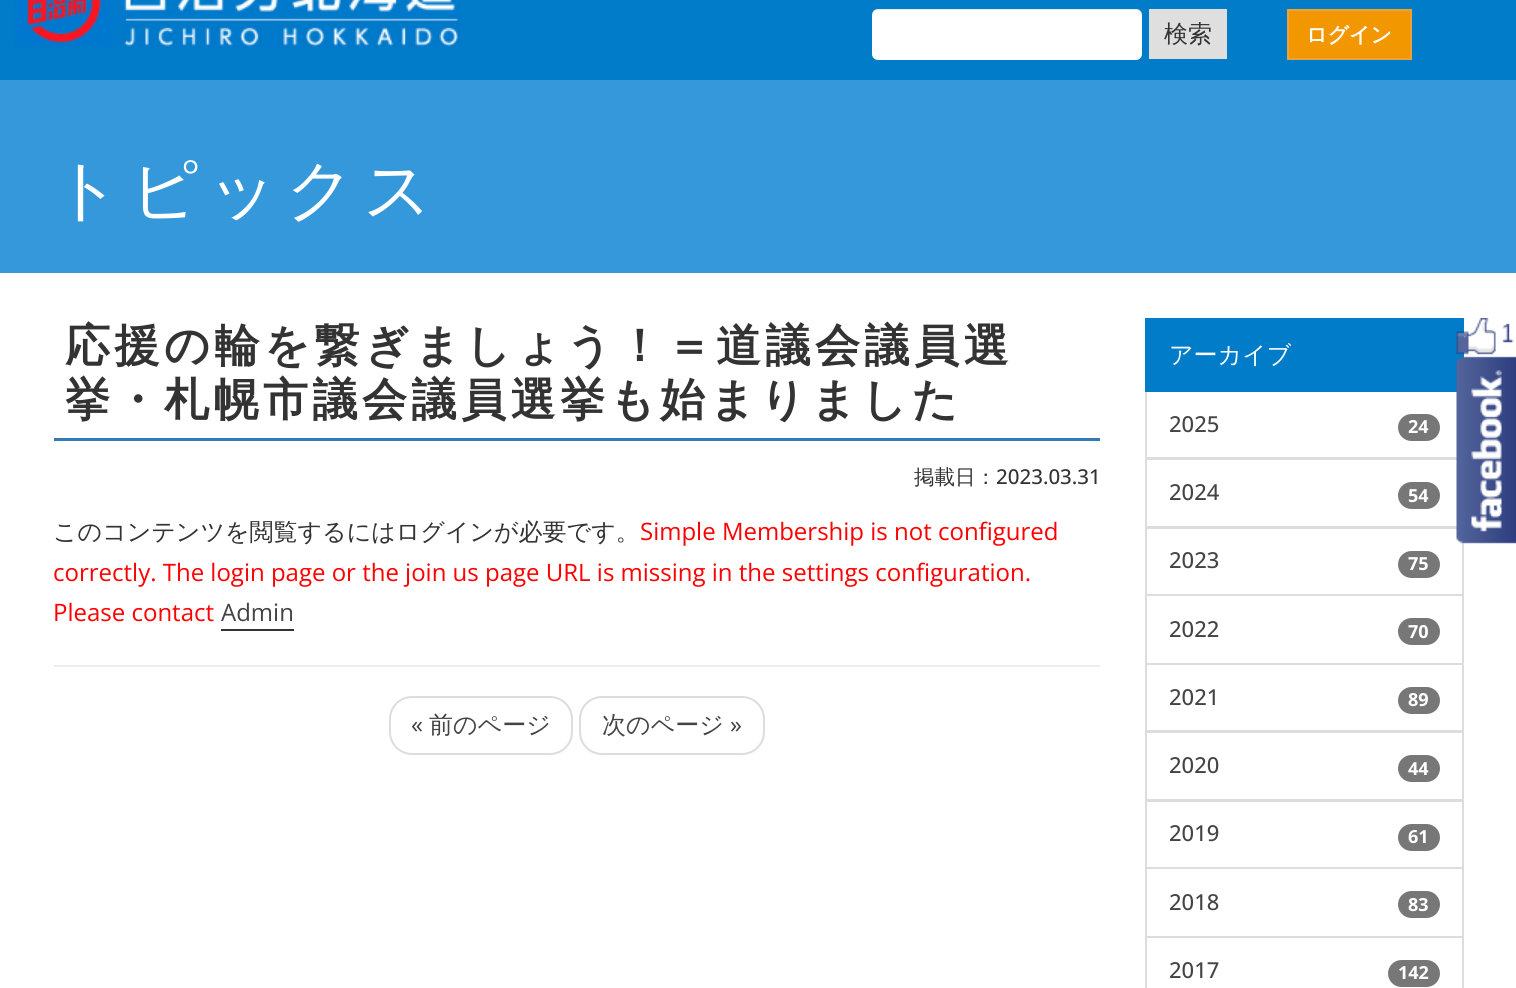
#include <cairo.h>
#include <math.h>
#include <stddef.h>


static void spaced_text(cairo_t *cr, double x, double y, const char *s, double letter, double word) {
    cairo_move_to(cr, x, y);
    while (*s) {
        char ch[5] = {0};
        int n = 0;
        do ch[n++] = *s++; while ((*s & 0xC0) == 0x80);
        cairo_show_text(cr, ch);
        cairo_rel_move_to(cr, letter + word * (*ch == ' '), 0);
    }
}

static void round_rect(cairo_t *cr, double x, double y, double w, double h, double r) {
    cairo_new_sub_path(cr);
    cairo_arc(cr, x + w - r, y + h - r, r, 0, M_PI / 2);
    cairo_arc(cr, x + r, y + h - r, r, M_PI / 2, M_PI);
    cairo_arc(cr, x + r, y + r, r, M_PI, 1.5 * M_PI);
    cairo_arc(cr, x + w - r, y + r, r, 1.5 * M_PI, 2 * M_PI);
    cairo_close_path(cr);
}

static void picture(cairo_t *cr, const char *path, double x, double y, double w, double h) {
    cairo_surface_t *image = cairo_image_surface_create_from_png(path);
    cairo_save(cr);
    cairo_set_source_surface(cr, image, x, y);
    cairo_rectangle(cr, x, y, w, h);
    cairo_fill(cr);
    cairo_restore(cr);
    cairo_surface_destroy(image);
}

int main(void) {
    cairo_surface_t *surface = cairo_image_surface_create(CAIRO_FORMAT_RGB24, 1516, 988);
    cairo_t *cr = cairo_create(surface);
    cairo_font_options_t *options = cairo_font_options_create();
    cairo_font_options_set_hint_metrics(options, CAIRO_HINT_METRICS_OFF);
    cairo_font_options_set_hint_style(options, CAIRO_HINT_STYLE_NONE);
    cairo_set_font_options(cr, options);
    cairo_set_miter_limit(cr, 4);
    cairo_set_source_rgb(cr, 1, 1, 1);
    cairo_paint(cr);
    cairo_set_source_rgb(cr, 0, 0.486, 0.784);
    cairo_rectangle(cr, 0, 0, 1516, 80);
    cairo_fill(cr);
    picture(cr, "img1.png", 15, 0, 445, 48);
    cairo_set_source_rgb(cr, 1, 1, 1);
    round_rect(cr, 872, 9, 270, 51, 6);
    cairo_fill(cr);
    cairo_set_source_rgba(cr, 0, 0, 0, 0.07);
    cairo_new_path(cr);
    cairo_move_to(cr, 878, 10);
    cairo_line_to(cr, 1136, 10);
    cairo_curve_to(cr, 1139, 10, 1142, 13, 1142, 16);
    cairo_line_to(cr, 1142, 15);
    cairo_curve_to(cr, 1142, 12, 1139, 9, 1136, 9);
    cairo_line_to(cr, 878, 9);
    cairo_curve_to(cr, 875, 9, 872, 12, 872, 15);
    cairo_line_to(cr, 872, 16);
    cairo_curve_to(cr, 872, 13, 874, 10, 878, 10);
    cairo_close_path(cr);
    cairo_fill(cr);
    cairo_set_source_rgb(cr, 0.875, 0.875, 0.875);
    cairo_rectangle(cr, 1149, 9, 78, 50);
    cairo_fill(cr);
    cairo_select_font_face(cr, "WenQuanYi Zen Hei Medium", CAIRO_FONT_SLANT_NORMAL, CAIRO_FONT_WEIGHT_NORMAL);
    cairo_set_font_size(cr, 24);
    cairo_set_source_rgb(cr, 0.2, 0.2, 0.2);
    cairo_move_to(cr, 1164, 42);
    cairo_show_text(cr, "検索");
    cairo_set_source_rgb(cr, 0.953, 0.592, 0);
    cairo_rectangle(cr, 1288, 10, 123, 49);
    cairo_fill_preserve(cr);
    cairo_set_source_rgb(cr, 0.933, 0.635, 0.212);
    cairo_stroke(cr);
    cairo_select_font_face(cr, "WenQuanYi Zen Hei", CAIRO_FONT_SLANT_NORMAL, CAIRO_FONT_WEIGHT_BOLD);
    cairo_set_font_size(cr, 21);
    cairo_set_source_rgb(cr, 1, 1, 1);
    cairo_move_to(cr, 1306, 42);
    cairo_show_text(cr, "ログイン");
    cairo_set_source_rgb(cr, 0.204, 0.596, 0.859);
    cairo_rectangle(cr, 0, 80, 1516, 193);
    cairo_fill(cr);
    cairo_select_font_face(cr, "WenQuanYi Zen Hei Medium", CAIRO_FONT_SLANT_NORMAL, CAIRO_FONT_WEIGHT_NORMAL);
    cairo_set_font_size(cr, 67.25);
    cairo_set_source_rgb(cr, 1, 1, 1);
    spaced_text(cr, 53, 213, "トピックス", 8.75, 0);
    cairo_set_source_rgb(cr, 0.2, 0.478, 0.718);
    cairo_rectangle(cr, 54, 438, 1046, 3);
    cairo_fill(cr);
    cairo_select_font_face(cr, "WenQuanYi Zen Hei", CAIRO_FONT_SLANT_NORMAL, CAIRO_FONT_WEIGHT_BOLD);
    cairo_set_font_size(cr, 45);
    cairo_set_source_rgb(cr, 0.2, 0.2, 0.2);
    spaced_text(cr, 65, 361, "応援の輪を繋ぎましょう！＝道議会議員選", 4.5, 0);
    spaced_text(cr, 65, 415, "挙・札幌市議会議員選挙も始まりました", 4.5, 0);
    cairo_select_font_face(cr, "WenQuanYi Zen Hei Medium", CAIRO_FONT_SLANT_NORMAL, CAIRO_FONT_WEIGHT_NORMAL);
    cairo_set_font_size(cr, 20.5);
    cairo_move_to(cr, 914, 484);
    cairo_show_text(cr, "掲載日：");
    cairo_select_font_face(cr, "Open Sans Medium", CAIRO_FONT_SLANT_NORMAL, CAIRO_FONT_WEIGHT_NORMAL);
    cairo_move_to(cr, 996, 484);
    cairo_show_text(cr, "2023.03.31");
    cairo_select_font_face(cr, "WenQuanYi Zen Hei Medium", CAIRO_FONT_SLANT_NORMAL, CAIRO_FONT_WEIGHT_NORMAL);
    cairo_set_font_size(cr, 24);
    cairo_move_to(cr, 53, 540);
    cairo_show_text(cr, "このコンテンツを閲覧するにはログインが必要です。");
    cairo_select_font_face(cr, "Open Sans", CAIRO_FONT_SLANT_NORMAL, CAIRO_FONT_WEIGHT_NORMAL);
    cairo_set_source_rgb(cr, 1, 0, 0);
    cairo_move_to(cr, 640, 540);
    cairo_show_text(cr, "Simple Membership is not configured");
    cairo_move_to(cr, 53, 581);
    cairo_show_text(cr, "correctly. The login page or the join us page URL is missing in the settings configuration.");
    cairo_move_to(cr, 53, 621);
    cairo_show_text(cr, "Please contact");
    cairo_set_source_rgb(cr, 0.267, 0.267, 0.267);
    cairo_move_to(cr, 221, 621);
    cairo_show_text(cr, "Admin");
    cairo_set_source_rgb(cr, 0.2, 0.2, 0.2);
    cairo_rectangle(cr, 221, 629, 73, 2);
    cairo_fill(cr);
    cairo_set_source_rgb(cr, 0.933, 0.933, 0.933);
    cairo_rectangle(cr, 54, 665, 1046, 2);
    cairo_fill(cr);
    round_rect(cr, 390, 697, 182, 57, 22);
    cairo_set_source_rgb(cr, 0.867, 0.867, 0.867);
    cairo_stroke(cr);
    cairo_set_source_rgb(cr, 0.267, 0.267, 0.267);
    cairo_move_to(cr, 411, 733);
    cairo_show_text(cr, "«");
    cairo_select_font_face(cr, "WenQuanYi Zen Hei Medium", CAIRO_FONT_SLANT_NORMAL, CAIRO_FONT_WEIGHT_NORMAL);
    cairo_move_to(cr, 429, 733);
    cairo_show_text(cr, "前のページ");
    round_rect(cr, 580, 697, 184, 57, 22);
    cairo_set_source_rgb(cr, 0.867, 0.867, 0.867);
    cairo_stroke(cr);
    cairo_set_source_rgb(cr, 0.267, 0.267, 0.267);
    cairo_move_to(cr, 602, 733);
    cairo_show_text(cr, "次のページ");
    cairo_select_font_face(cr, "Open Sans", CAIRO_FONT_SLANT_NORMAL, CAIRO_FONT_WEIGHT_NORMAL);
    cairo_move_to(cr, 730, 733);
    cairo_show_text(cr, "»");
    cairo_rectangle(cr, 1146, 391, 317, 67);
    cairo_set_source_rgb(cr, 0.867, 0.867, 0.867);
    cairo_stroke(cr);
    cairo_set_source_rgb(cr, 0, 0.486, 0.784);
    cairo_rectangle(cr, 1145, 318, 319, 74);
    cairo_fill(cr);
    cairo_select_font_face(cr, "WenQuanYi Zen Hei Medium", CAIRO_FONT_SLANT_NORMAL, CAIRO_FONT_WEIGHT_NORMAL);
    cairo_set_source_rgb(cr, 1, 1, 1);
    cairo_move_to(cr, 1169, 363);
    cairo_show_text(cr, "アーカイブ");
    cairo_select_font_face(cr, "Open Sans Medium", CAIRO_FONT_SLANT_NORMAL, CAIRO_FONT_WEIGHT_NORMAL);
    cairo_set_font_size(cr, 22);
    cairo_set_source_rgb(cr, 0.267, 0.267, 0.267);
    cairo_move_to(cr, 1169, 432);
    cairo_show_text(cr, "2025");
    cairo_set_source_rgb(cr, 0.467, 0.467, 0.467);
    round_rect(cr, 1398, 414, 42, 27, 13.5);
    cairo_fill(cr);
    cairo_select_font_face(cr, "Open Sans", CAIRO_FONT_SLANT_NORMAL, CAIRO_FONT_WEIGHT_BOLD);
    cairo_set_font_size(cr, 18);
    cairo_set_source_rgb(cr, 1, 1, 1);
    cairo_move_to(cr, 1408, 433);
    cairo_show_text(cr, "24");
    cairo_rectangle(cr, 1146, 459, 317, 68);
    cairo_set_source_rgb(cr, 0.867, 0.867, 0.867);
    cairo_stroke(cr);
    cairo_select_font_face(cr, "Open Sans Medium", CAIRO_FONT_SLANT_NORMAL, CAIRO_FONT_WEIGHT_NORMAL);
    cairo_set_font_size(cr, 22);
    cairo_set_source_rgb(cr, 0.267, 0.267, 0.267);
    cairo_move_to(cr, 1169, 500);
    cairo_show_text(cr, "2024");
    cairo_set_source_rgb(cr, 0.467, 0.467, 0.467);
    round_rect(cr, 1398, 482, 42, 27, 13.5);
    cairo_fill(cr);
    cairo_select_font_face(cr, "Open Sans", CAIRO_FONT_SLANT_NORMAL, CAIRO_FONT_WEIGHT_BOLD);
    cairo_set_font_size(cr, 18);
    cairo_set_source_rgb(cr, 1, 1, 1);
    cairo_move_to(cr, 1408, 502);
    cairo_show_text(cr, "54");
    cairo_rectangle(cr, 1146, 528, 317, 67);
    cairo_set_source_rgb(cr, 0.867, 0.867, 0.867);
    cairo_stroke(cr);
    cairo_select_font_face(cr, "Open Sans Medium", CAIRO_FONT_SLANT_NORMAL, CAIRO_FONT_WEIGHT_NORMAL);
    cairo_set_font_size(cr, 22);
    cairo_set_source_rgb(cr, 0.267, 0.267, 0.267);
    cairo_move_to(cr, 1169, 568);
    cairo_show_text(cr, "2023");
    cairo_set_source_rgb(cr, 0.467, 0.467, 0.467);
    round_rect(cr, 1398, 551, 42, 27, 13.5);
    cairo_fill(cr);
    cairo_select_font_face(cr, "Open Sans", CAIRO_FONT_SLANT_NORMAL, CAIRO_FONT_WEIGHT_BOLD);
    cairo_set_font_size(cr, 18);
    cairo_set_source_rgb(cr, 1, 1, 1);
    cairo_move_to(cr, 1408, 570);
    cairo_show_text(cr, "75");
    cairo_rectangle(cr, 1146, 595, 317, 69);
    cairo_set_source_rgb(cr, 0.867, 0.867, 0.867);
    cairo_stroke(cr);
    cairo_select_font_face(cr, "Open Sans Medium", CAIRO_FONT_SLANT_NORMAL, CAIRO_FONT_WEIGHT_NORMAL);
    cairo_set_font_size(cr, 22);
    cairo_set_source_rgb(cr, 0.267, 0.267, 0.267);
    cairo_move_to(cr, 1169, 637);
    cairo_show_text(cr, "2022");
    cairo_set_source_rgb(cr, 0.467, 0.467, 0.467);
    round_rect(cr, 1398, 618, 42, 27, 13.5);
    cairo_fill(cr);
    cairo_select_font_face(cr, "Open Sans", CAIRO_FONT_SLANT_NORMAL, CAIRO_FONT_WEIGHT_BOLD);
    cairo_set_font_size(cr, 18);
    cairo_set_source_rgb(cr, 1, 1, 1);
    cairo_move_to(cr, 1408, 638);
    cairo_show_text(cr, "70");
    cairo_rectangle(cr, 1146, 664, 317, 67);
    cairo_set_source_rgb(cr, 0.867, 0.867, 0.867);
    cairo_stroke(cr);
    cairo_select_font_face(cr, "Open Sans Medium", CAIRO_FONT_SLANT_NORMAL, CAIRO_FONT_WEIGHT_NORMAL);
    cairo_set_font_size(cr, 22);
    cairo_set_source_rgb(cr, 0.267, 0.267, 0.267);
    cairo_move_to(cr, 1169, 705);
    cairo_show_text(cr, "2021");
    cairo_set_source_rgb(cr, 0.467, 0.467, 0.467);
    round_rect(cr, 1398, 687, 42, 27, 13.5);
    cairo_fill(cr);
    cairo_select_font_face(cr, "Open Sans", CAIRO_FONT_SLANT_NORMAL, CAIRO_FONT_WEIGHT_BOLD);
    cairo_set_font_size(cr, 18);
    cairo_set_source_rgb(cr, 1, 1, 1);
    cairo_move_to(cr, 1408, 706);
    cairo_show_text(cr, "89");
    cairo_rectangle(cr, 1146, 732, 317, 68);
    cairo_set_source_rgb(cr, 0.867, 0.867, 0.867);
    cairo_stroke(cr);
    cairo_select_font_face(cr, "Open Sans Medium", CAIRO_FONT_SLANT_NORMAL, CAIRO_FONT_WEIGHT_NORMAL);
    cairo_set_font_size(cr, 22);
    cairo_set_source_rgb(cr, 0.267, 0.267, 0.267);
    cairo_move_to(cr, 1169, 773);
    cairo_show_text(cr, "2020");
    cairo_set_source_rgb(cr, 0.467, 0.467, 0.467);
    round_rect(cr, 1398, 755, 42, 27, 13.5);
    cairo_fill(cr);
    cairo_select_font_face(cr, "Open Sans", CAIRO_FONT_SLANT_NORMAL, CAIRO_FONT_WEIGHT_BOLD);
    cairo_set_font_size(cr, 18);
    cairo_set_source_rgb(cr, 1, 1, 1);
    cairo_move_to(cr, 1408, 775);
    cairo_show_text(cr, "44");
    cairo_rectangle(cr, 1146, 801, 317, 67);
    cairo_set_source_rgb(cr, 0.867, 0.867, 0.867);
    cairo_stroke(cr);
    cairo_select_font_face(cr, "Open Sans Medium", CAIRO_FONT_SLANT_NORMAL, CAIRO_FONT_WEIGHT_NORMAL);
    cairo_set_font_size(cr, 22);
    cairo_set_source_rgb(cr, 0.267, 0.267, 0.267);
    cairo_move_to(cr, 1169, 841);
    cairo_show_text(cr, "2019");
    cairo_set_source_rgb(cr, 0.467, 0.467, 0.467);
    round_rect(cr, 1398, 824, 42, 27, 13.5);
    cairo_fill(cr);
    cairo_select_font_face(cr, "Open Sans", CAIRO_FONT_SLANT_NORMAL, CAIRO_FONT_WEIGHT_BOLD);
    cairo_set_font_size(cr, 18);
    cairo_set_source_rgb(cr, 1, 1, 1);
    cairo_move_to(cr, 1408, 843);
    cairo_show_text(cr, "61");
    cairo_rectangle(cr, 1146, 868, 317, 69);
    cairo_set_source_rgb(cr, 0.867, 0.867, 0.867);
    cairo_stroke(cr);
    cairo_select_font_face(cr, "Open Sans Medium", CAIRO_FONT_SLANT_NORMAL, CAIRO_FONT_WEIGHT_NORMAL);
    cairo_set_font_size(cr, 22);
    cairo_set_source_rgb(cr, 0.267, 0.267, 0.267);
    cairo_move_to(cr, 1169, 910);
    cairo_show_text(cr, "2018");
    cairo_set_source_rgb(cr, 0.467, 0.467, 0.467);
    round_rect(cr, 1398, 891, 42, 27, 13.5);
    cairo_fill(cr);
    cairo_select_font_face(cr, "Open Sans", CAIRO_FONT_SLANT_NORMAL, CAIRO_FONT_WEIGHT_BOLD);
    cairo_set_font_size(cr, 18);
    cairo_set_source_rgb(cr, 1, 1, 1);
    cairo_move_to(cr, 1408, 911);
    cairo_show_text(cr, "83");
    cairo_rectangle(cr, 1146, 937, 317, 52);
    cairo_set_source_rgb(cr, 0.867, 0.867, 0.867);
    cairo_stroke(cr);
    cairo_select_font_face(cr, "Open Sans Medium", CAIRO_FONT_SLANT_NORMAL, CAIRO_FONT_WEIGHT_NORMAL);
    cairo_set_font_size(cr, 22);
    cairo_set_source_rgb(cr, 0.267, 0.267, 0.267);
    cairo_move_to(cr, 1169, 978);
    cairo_show_text(cr, "2017");
    cairo_set_source_rgb(cr, 0.467, 0.467, 0.467);
    round_rect(cr, 1388, 960, 52, 27, 13.5);
    cairo_fill(cr);
    cairo_select_font_face(cr, "Open Sans", CAIRO_FONT_SLANT_NORMAL, CAIRO_FONT_WEIGHT_BOLD);
    cairo_set_font_size(cr, 18);
    cairo_set_source_rgb(cr, 1, 1, 1);
    cairo_move_to(cr, 1398, 979);
    cairo_show_text(cr, "142");
    picture(cr, "img2.png", 1456, 318, 60, 226);
    cairo_surface_write_to_png(surface, "page.png");
    cairo_font_options_destroy(options);
    cairo_destroy(cr);
    cairo_surface_destroy(surface);
    return 0;
}
